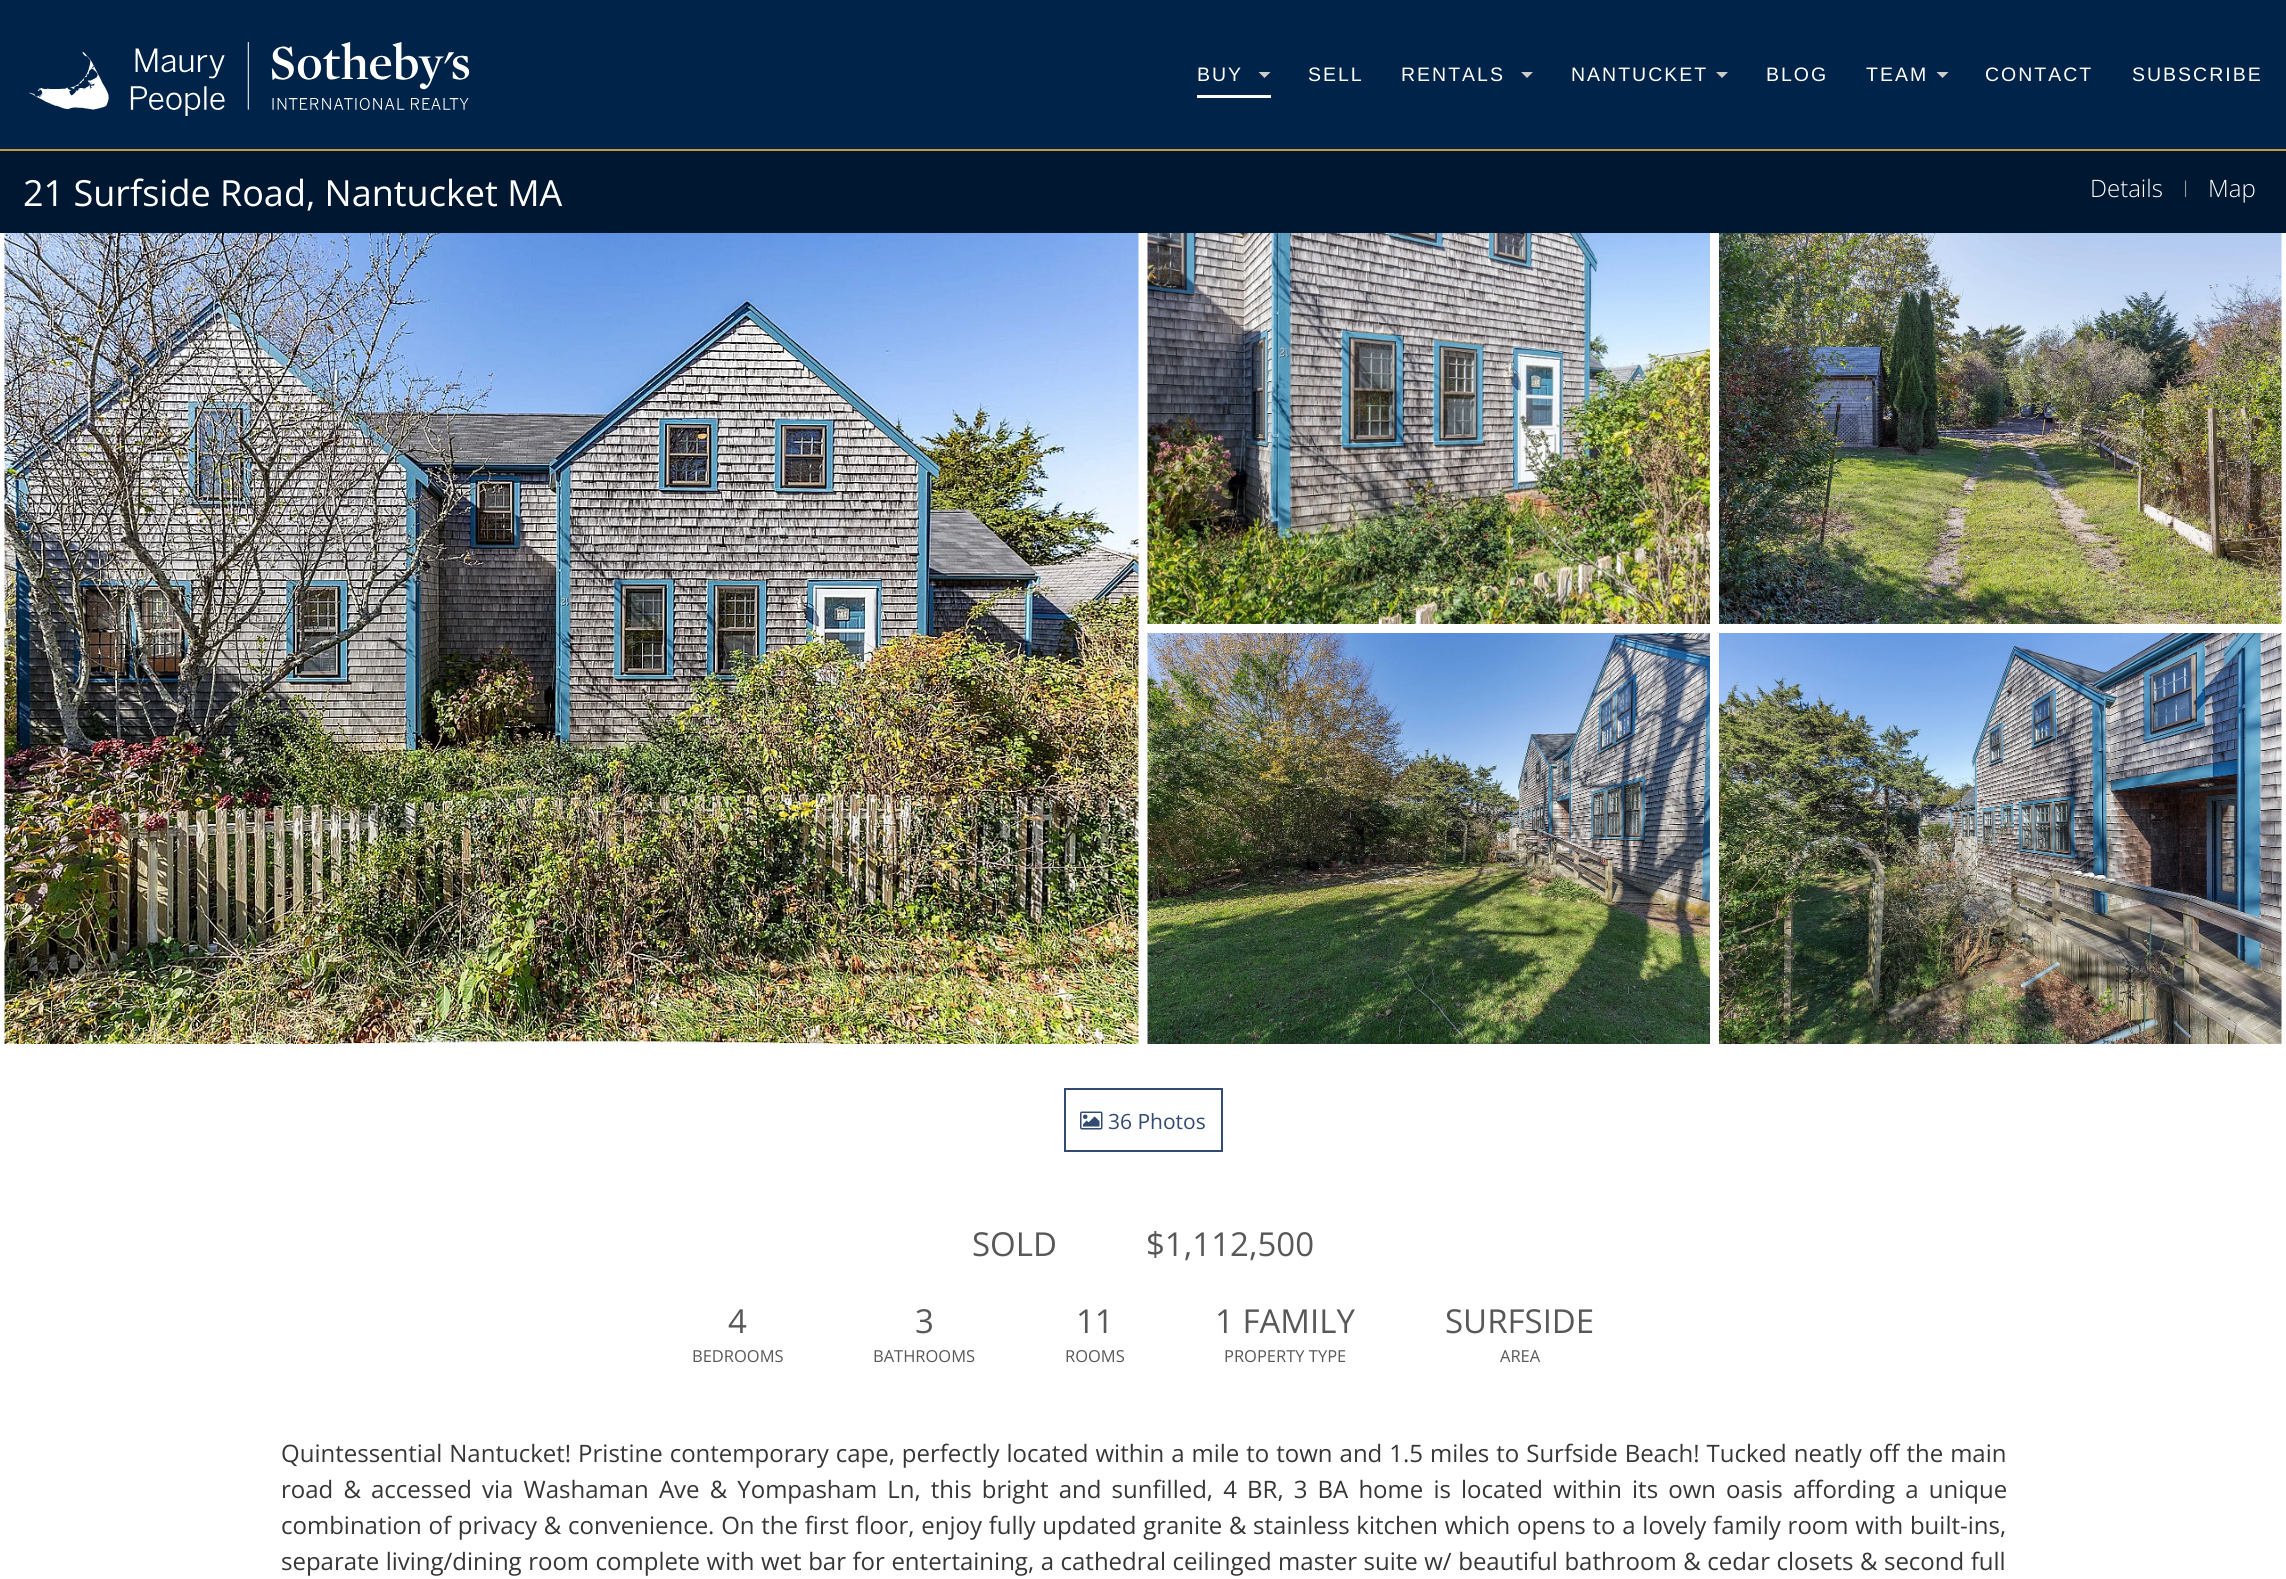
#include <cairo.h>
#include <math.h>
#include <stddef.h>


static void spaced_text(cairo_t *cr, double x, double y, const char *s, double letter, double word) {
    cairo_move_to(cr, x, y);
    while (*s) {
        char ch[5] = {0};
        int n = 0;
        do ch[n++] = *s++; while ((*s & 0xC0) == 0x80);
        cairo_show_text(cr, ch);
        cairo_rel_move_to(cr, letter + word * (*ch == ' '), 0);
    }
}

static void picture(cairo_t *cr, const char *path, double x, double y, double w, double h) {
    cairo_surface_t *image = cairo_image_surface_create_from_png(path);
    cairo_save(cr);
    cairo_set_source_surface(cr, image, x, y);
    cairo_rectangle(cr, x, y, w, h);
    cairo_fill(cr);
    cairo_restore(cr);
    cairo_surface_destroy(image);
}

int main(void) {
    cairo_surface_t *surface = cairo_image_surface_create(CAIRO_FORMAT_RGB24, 2286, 1579);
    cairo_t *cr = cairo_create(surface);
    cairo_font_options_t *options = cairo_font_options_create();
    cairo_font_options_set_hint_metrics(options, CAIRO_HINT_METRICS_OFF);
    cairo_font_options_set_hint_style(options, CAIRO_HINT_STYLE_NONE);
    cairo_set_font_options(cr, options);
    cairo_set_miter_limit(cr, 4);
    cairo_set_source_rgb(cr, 1, 1, 1);
    cairo_paint(cr);
    cairo_set_source_rgb(cr, 0, 0.137, 0.286);
    cairo_rectangle(cr, 0, 0, 2286, 149);
    cairo_fill(cr);
    picture(cr, "img1.png", 29, 42, 441, 74);
    cairo_set_source_rgb(cr, 1, 1, 1);
    cairo_rectangle(cr, 1197, 95, 74, 3);
    cairo_fill(cr);
    cairo_select_font_face(cr, "Liberation Sans", CAIRO_FONT_SLANT_NORMAL, CAIRO_FONT_WEIGHT_NORMAL);
    cairo_set_font_size(cr, 19.5);
    spaced_text(cr, 1197, 81, "BUY", 2, 0);
    cairo_set_source_rgb(cr, 0.8, 0.8, 0.8);
    cairo_new_path(cr);
    cairo_move_to(cr, 1258.5, 72);
    cairo_line_to(cr, 1270.5, 72);
    cairo_line_to(cr, 1264.5, 78);
    cairo_close_path(cr);
    cairo_fill(cr);
    cairo_set_source_rgb(cr, 1, 1, 1);
    spaced_text(cr, 1308, 81, "SELL", 2, 0);
    spaced_text(cr, 1401, 81, "RENTALS", 2, 0);
    cairo_set_source_rgb(cr, 0.8, 0.8, 0.8);
    cairo_new_path(cr);
    cairo_move_to(cr, 1521, 72);
    cairo_line_to(cr, 1533, 72);
    cairo_line_to(cr, 1527, 78);
    cairo_close_path(cr);
    cairo_fill(cr);
    cairo_set_source_rgb(cr, 1, 1, 1);
    spaced_text(cr, 1571, 81, "NANTUCKET", 2, 0);
    cairo_set_source_rgb(cr, 0.8, 0.8, 0.8);
    cairo_new_path(cr);
    cairo_move_to(cr, 1716, 72);
    cairo_line_to(cr, 1728, 72);
    cairo_line_to(cr, 1722, 78);
    cairo_close_path(cr);
    cairo_fill(cr);
    cairo_set_source_rgb(cr, 1, 1, 1);
    spaced_text(cr, 1766, 81, "BLOG", 2, 0);
    spaced_text(cr, 1866, 81, "TEAM", 2, 0);
    cairo_set_source_rgb(cr, 0.8, 0.8, 0.8);
    cairo_new_path(cr);
    cairo_move_to(cr, 1936.5, 72);
    cairo_line_to(cr, 1948.5, 72);
    cairo_line_to(cr, 1942.5, 78);
    cairo_close_path(cr);
    cairo_fill(cr);
    cairo_set_source_rgb(cr, 1, 1, 1);
    spaced_text(cr, 1985, 81, "CONTACT", 2, 0);
    spaced_text(cr, 2132, 81, "SUBSCRIBE", 2, 0);
    cairo_set_source_rgb(cr, 0, 0.09, 0.192);
    cairo_rectangle(cr, 0, 151, 2286, 82);
    cairo_fill(cr);
    cairo_set_source_rgb(cr, 0.761, 0.608, 0.251);
    cairo_rectangle(cr, 0, 149, 2286, 2);
    cairo_fill(cr);
    cairo_select_font_face(cr, "Open Sans", CAIRO_FONT_SLANT_NORMAL, CAIRO_FONT_WEIGHT_NORMAL);
    cairo_set_font_size(cr, 36);
    cairo_set_source_rgb(cr, 1, 1, 1);
    cairo_move_to(cr, 23, 206);
    cairo_show_text(cr, "21 Surfside Road, Nantucket MA");
    cairo_select_font_face(cr, "Open Sans Light", CAIRO_FONT_SLANT_NORMAL, CAIRO_FONT_WEIGHT_NORMAL);
    cairo_set_font_size(cr, 24);
    cairo_move_to(cr, 2090, 197);
    cairo_show_text(cr, "Details");
    cairo_select_font_face(cr, "Open Sans", CAIRO_FONT_SLANT_NORMAL, CAIRO_FONT_WEIGHT_NORMAL);
    cairo_set_font_size(cr, 16.5);
    cairo_set_source_rgb(cr, 0.6, 0.6, 0.6);
    cairo_move_to(cr, 2181, 193);
    cairo_show_text(cr, "|");
    cairo_select_font_face(cr, "Open Sans Light", CAIRO_FONT_SLANT_NORMAL, CAIRO_FONT_WEIGHT_NORMAL);
    cairo_set_font_size(cr, 24);
    cairo_set_source_rgb(cr, 1, 1, 1);
    cairo_move_to(cr, 2208, 197);
    cairo_show_text(cr, "Map");
    picture(cr, "img2.png", 4, 233, 1135, 811);
    picture(cr, "img3.png", 1147, 233, 563, 391);
    picture(cr, "img4.png", 1719, 233, 563, 391);
    picture(cr, "img5.png", 1147, 633, 563, 411);
    picture(cr, "img6.png", 1719, 633, 563, 411);
    cairo_rectangle(cr, 1065, 1089, 157, 62);
    cairo_set_source_rgb(cr, 0.196, 0.294, 0.447);
    cairo_stroke(cr);
    picture(cr, "img7.png", 1080, 1111, 23, 19);
    cairo_select_font_face(cr, "Open Sans", CAIRO_FONT_SLANT_NORMAL, CAIRO_FONT_WEIGHT_NORMAL);
    cairo_set_font_size(cr, 21);
    cairo_move_to(cr, 1108, 1129);
    cairo_show_text(cr, "36 Photos");
    cairo_set_font_size(cr, 33);
    cairo_set_source_rgb(cr, 0.345, 0.345, 0.345);
    cairo_move_to(cr, 972, 1256);
    cairo_show_text(cr, "SOLD");
    cairo_move_to(cr, 1146, 1256);
    cairo_show_text(cr, "$1,112,500");
    cairo_move_to(cr, 728, 1333);
    cairo_show_text(cr, "4");
    cairo_set_font_size(cr, 16.5);
    cairo_move_to(cr, 692, 1362);
    cairo_show_text(cr, "BEDROOMS");
    cairo_set_font_size(cr, 33);
    cairo_move_to(cr, 915, 1333);
    cairo_show_text(cr, "3");
    cairo_set_font_size(cr, 16.5);
    cairo_move_to(cr, 873, 1362);
    cairo_show_text(cr, "BATHROOMS");
    cairo_set_font_size(cr, 33);
    cairo_move_to(cr, 1076, 1333);
    cairo_show_text(cr, "11");
    cairo_set_font_size(cr, 16.5);
    cairo_move_to(cr, 1065, 1362);
    cairo_show_text(cr, "ROOMS");
    cairo_set_font_size(cr, 33);
    cairo_move_to(cr, 1215, 1333);
    cairo_show_text(cr, "1 FAMILY");
    cairo_set_font_size(cr, 16.5);
    cairo_move_to(cr, 1224, 1362);
    cairo_show_text(cr, "PROPERTY TYPE");
    cairo_set_font_size(cr, 33);
    cairo_move_to(cr, 1445, 1333);
    cairo_show_text(cr, "SURFSIDE");
    cairo_set_font_size(cr, 16.5);
    cairo_move_to(cr, 1500, 1362);
    cairo_show_text(cr, "AREA");
    cairo_set_font_size(cr, 24);
    cairo_set_source_rgb(cr, 0.212, 0.212, 0.212);
    spaced_text(cr, 281, 1462, "Quintessential Nantucket! Pristine contemporary cape, perfectly located within a mile to town and 1.5 miles to Surfside Beach! Tucked neatly off the main", 0, 0.75);
    spaced_text(cr, 281, 1498, "road & accessed via Washaman Ave & Yompasham Ln, this bright and sunfilled, 4 BR, 3 BA home is located within its own oasis affording a unique", 0, 3.9);
    spaced_text(cr, 281, 1534, "combination of privacy & convenience. On the first floor, enjoy fully updated granite & stainless kitchen which opens to a lovely family room with built-ins,", 0, 0.5);
    spaced_text(cr, 281, 1570, "separate living/dining room complete with wet bar for entertaining, a cathedral ceilinged master suite w/ beautiful bathroom & cedar closets & second full", 0, 0.3);
    cairo_surface_write_to_png(surface, "page.png");
    cairo_font_options_destroy(options);
    cairo_destroy(cr);
    cairo_surface_destroy(surface);
    return 0;
}
